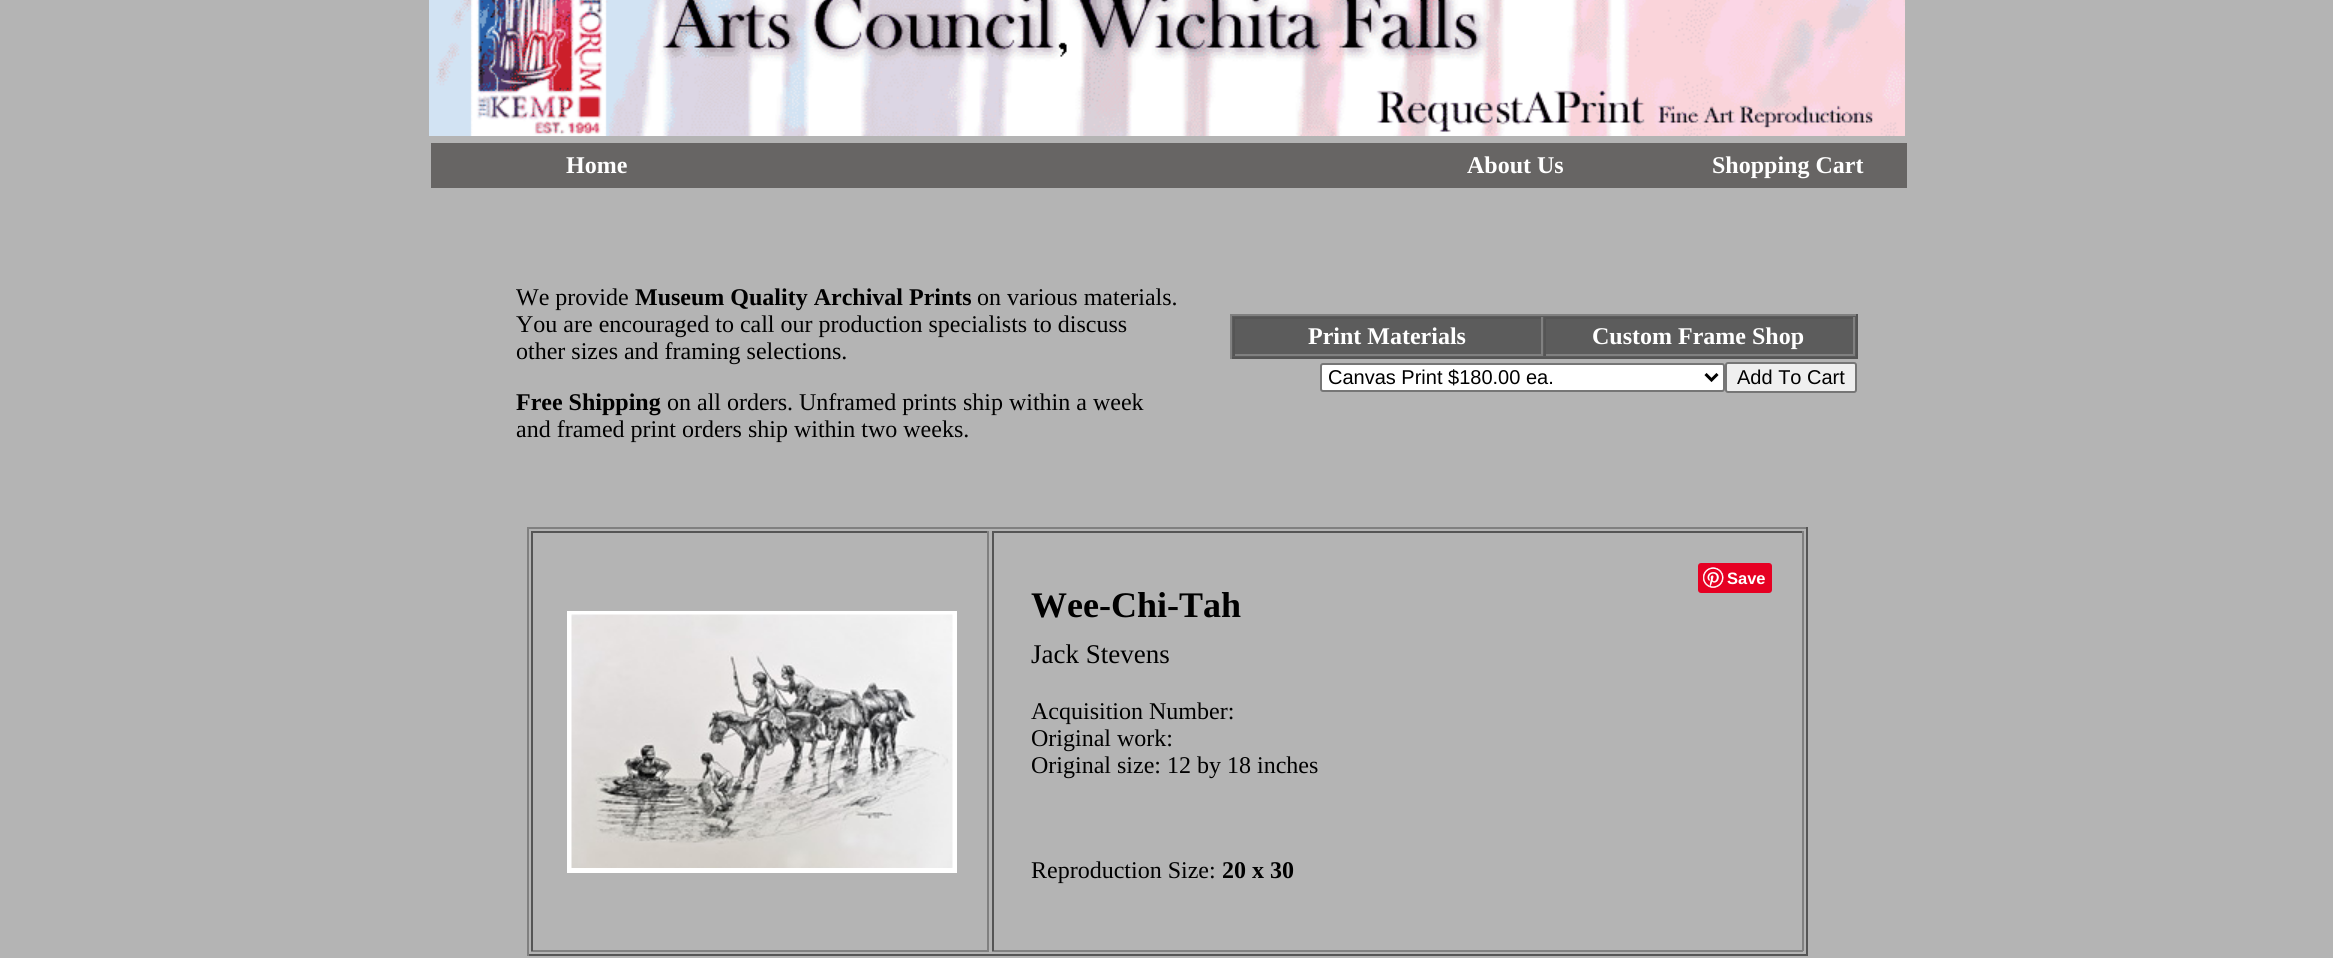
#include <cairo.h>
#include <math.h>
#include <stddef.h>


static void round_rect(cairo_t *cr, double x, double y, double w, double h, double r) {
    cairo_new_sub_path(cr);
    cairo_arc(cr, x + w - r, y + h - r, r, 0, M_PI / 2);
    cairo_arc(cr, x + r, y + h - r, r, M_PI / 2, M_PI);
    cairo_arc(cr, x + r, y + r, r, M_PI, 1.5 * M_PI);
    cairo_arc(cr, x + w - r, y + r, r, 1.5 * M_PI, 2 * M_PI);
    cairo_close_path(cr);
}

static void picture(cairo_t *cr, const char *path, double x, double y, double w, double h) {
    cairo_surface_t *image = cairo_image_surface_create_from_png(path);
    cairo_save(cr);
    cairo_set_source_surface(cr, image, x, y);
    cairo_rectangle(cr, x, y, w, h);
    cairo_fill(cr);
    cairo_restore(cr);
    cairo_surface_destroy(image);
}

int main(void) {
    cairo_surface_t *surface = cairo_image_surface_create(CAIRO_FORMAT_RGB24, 2333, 958);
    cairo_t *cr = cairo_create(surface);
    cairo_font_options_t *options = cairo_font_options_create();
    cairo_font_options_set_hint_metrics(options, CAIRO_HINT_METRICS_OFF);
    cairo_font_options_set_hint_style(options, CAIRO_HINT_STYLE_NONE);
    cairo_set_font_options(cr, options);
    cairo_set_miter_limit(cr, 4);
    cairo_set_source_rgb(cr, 0.706, 0.706, 0.706);
    cairo_paint(cr);
    picture(cr, "img1.png", 429, 0, 1476, 136);
    cairo_set_source_rgb(cr, 0.404, 0.396, 0.392);
    cairo_rectangle(cr, 431, 143, 1476, 45);
    cairo_fill(cr);
    cairo_select_font_face(cr, "Liberation Serif", CAIRO_FONT_SLANT_NORMAL, CAIRO_FONT_WEIGHT_BOLD);
    cairo_set_font_size(cr, 24);
    cairo_set_source_rgb(cr, 1, 1, 1);
    cairo_move_to(cr, 566, 173);
    cairo_show_text(cr, "Home");
    cairo_move_to(cr, 1467, 173);
    cairo_show_text(cr, "About Us");
    cairo_move_to(cr, 1712, 173);
    cairo_show_text(cr, "Shopping Cart");
    cairo_select_font_face(cr, "Liberation Serif", CAIRO_FONT_SLANT_NORMAL, CAIRO_FONT_WEIGHT_NORMAL);
    cairo_set_source_rgb(cr, 0, 0, 0);
    cairo_move_to(cr, 516, 305);
    cairo_show_text(cr, "We provide");
    cairo_select_font_face(cr, "Liberation Serif", CAIRO_FONT_SLANT_NORMAL, CAIRO_FONT_WEIGHT_BOLD);
    cairo_move_to(cr, 635, 305);
    cairo_show_text(cr, "Museum Quality Archival Prints");
    cairo_select_font_face(cr, "Liberation Serif", CAIRO_FONT_SLANT_NORMAL, CAIRO_FONT_WEIGHT_NORMAL);
    cairo_move_to(cr, 977, 305);
    cairo_show_text(cr, "on various materials.");
    cairo_move_to(cr, 516, 332);
    cairo_show_text(cr, "You are encouraged to call our production specialists to discuss");
    cairo_move_to(cr, 516, 359);
    cairo_show_text(cr, "other sizes and framing selections.");
    cairo_select_font_face(cr, "Liberation Serif", CAIRO_FONT_SLANT_NORMAL, CAIRO_FONT_WEIGHT_BOLD);
    cairo_move_to(cr, 516, 410);
    cairo_show_text(cr, "Free Shipping");
    cairo_select_font_face(cr, "Liberation Serif", CAIRO_FONT_SLANT_NORMAL, CAIRO_FONT_WEIGHT_NORMAL);
    cairo_move_to(cr, 667, 410);
    cairo_show_text(cr, "on all orders. Unframed prints ship within a week");
    cairo_move_to(cr, 516, 437);
    cairo_show_text(cr, "and framed print orders ship within two weeks.");
    cairo_set_source_rgb(cr, 0.361, 0.361, 0.361);
    cairo_rectangle(cr, 1232, 316, 624, 41);
    cairo_fill(cr);
    cairo_set_source_rgb(cr, 0.502, 0.502, 0.502);
    cairo_rectangle(cr, 1230, 314, 627, 2);
    cairo_fill(cr);
    cairo_set_source_rgb(cr, 0.333, 0.333, 0.333);
    cairo_rectangle(cr, 1856, 314, 2, 45);
    cairo_fill(cr);
    cairo_rectangle(cr, 1230, 357, 627, 2);
    cairo_fill(cr);
    cairo_set_source_rgb(cr, 0.502, 0.502, 0.502);
    cairo_rectangle(cr, 1230, 314, 2, 45);
    cairo_fill(cr);
    cairo_set_source_rgb(cr, 0.333, 0.333, 0.333);
    cairo_rectangle(cr, 1233, 317, 309, 2);
    cairo_fill(cr);
    cairo_set_source_rgb(cr, 0.502, 0.502, 0.502);
    cairo_rectangle(cr, 1541, 317, 2, 39);
    cairo_fill(cr);
    cairo_rectangle(cr, 1233, 354, 309, 2);
    cairo_fill(cr);
    cairo_set_source_rgb(cr, 0.333, 0.333, 0.333);
    cairo_rectangle(cr, 1233, 317, 2, 39);
    cairo_fill(cr);
    cairo_select_font_face(cr, "Liberation Serif", CAIRO_FONT_SLANT_NORMAL, CAIRO_FONT_WEIGHT_BOLD);
    cairo_set_source_rgb(cr, 1, 1, 1);
    cairo_move_to(cr, 1308, 344);
    cairo_show_text(cr, "Print Materials");
    cairo_set_source_rgb(cr, 0.333, 0.333, 0.333);
    cairo_rectangle(cr, 1544, 317, 310, 2);
    cairo_fill(cr);
    cairo_set_source_rgb(cr, 0.502, 0.502, 0.502);
    cairo_rectangle(cr, 1853, 317, 2, 39);
    cairo_fill(cr);
    cairo_rectangle(cr, 1544, 354, 310, 2);
    cairo_fill(cr);
    cairo_set_source_rgb(cr, 0.333, 0.333, 0.333);
    cairo_rectangle(cr, 1544, 317, 2, 39);
    cairo_fill(cr);
    cairo_set_source_rgb(cr, 1, 1, 1);
    cairo_move_to(cr, 1592, 344);
    cairo_show_text(cr, "Custom Frame Shop");
    round_rect(cr, 1321, 364, 403, 27, 2);
    cairo_fill_preserve(cr);
    cairo_set_source_rgb(cr, 0.463, 0.463, 0.463);
    cairo_stroke(cr);
    cairo_new_path(cr);
    cairo_move_to(cr, 1705.5, 374);
    cairo_line_to(cr, 1711.5, 380);
    cairo_line_to(cr, 1717.5, 374);
    cairo_set_source_rgb(cr, 0, 0, 0);
    cairo_set_line_width(cr, 3);
    cairo_stroke(cr);
    cairo_select_font_face(cr, "Liberation Sans", CAIRO_FONT_SLANT_NORMAL, CAIRO_FONT_WEIGHT_NORMAL);
    cairo_set_font_size(cr, 20);
    cairo_move_to(cr, 1328, 384);
    cairo_show_text(cr, "Canvas Print $180.00 ea.");
    cairo_set_source_rgb(cr, 0.937, 0.937, 0.937);
    round_rect(cr, 1726, 363, 130, 29, 2);
    cairo_fill_preserve(cr);
    cairo_set_source_rgb(cr, 0.463, 0.463, 0.463);
    cairo_set_line_width(cr, 2);
    cairo_stroke(cr);
    cairo_set_source_rgb(cr, 0, 0, 0);
    cairo_move_to(cr, 1737, 384);
    cairo_show_text(cr, "Add To Cart");
    cairo_set_source_rgb(cr, 0.502, 0.502, 0.502);
    cairo_rectangle(cr, 527, 527, 1281, 2);
    cairo_fill(cr);
    cairo_set_source_rgb(cr, 0.333, 0.333, 0.333);
    cairo_rectangle(cr, 1806, 527, 2, 429);
    cairo_fill(cr);
    cairo_rectangle(cr, 527, 954, 1281, 2);
    cairo_fill(cr);
    cairo_set_source_rgb(cr, 0.502, 0.502, 0.502);
    cairo_rectangle(cr, 527, 527, 2, 429);
    cairo_fill(cr);
    cairo_set_source_rgb(cr, 0.333, 0.333, 0.333);
    cairo_rectangle(cr, 531, 531, 458, 2);
    cairo_fill(cr);
    cairo_set_source_rgb(cr, 0.502, 0.502, 0.502);
    cairo_rectangle(cr, 987, 531, 2, 420);
    cairo_fill(cr);
    cairo_rectangle(cr, 531, 950, 458, 2);
    cairo_fill(cr);
    cairo_set_source_rgb(cr, 0.333, 0.333, 0.333);
    cairo_rectangle(cr, 531, 531, 2, 420);
    cairo_fill(cr);
    cairo_rectangle(cr, 569.5, 613.5, 385, 257);
    cairo_set_source_rgb(cr, 1, 1, 1);
    cairo_set_line_width(cr, 5);
    cairo_stroke(cr);
    picture(cr, "img2.png", 571, 614, 382, 254);
    cairo_set_source_rgb(cr, 0.333, 0.333, 0.333);
    cairo_rectangle(cr, 992, 531, 811, 2);
    cairo_fill(cr);
    cairo_set_source_rgb(cr, 0.502, 0.502, 0.502);
    cairo_rectangle(cr, 1802, 531, 2, 420);
    cairo_fill(cr);
    cairo_rectangle(cr, 992, 950, 811, 2);
    cairo_fill(cr);
    cairo_set_source_rgb(cr, 0.333, 0.333, 0.333);
    cairo_rectangle(cr, 992, 531, 2, 420);
    cairo_fill(cr);
    cairo_set_source_rgb(cr, 0.902, 0, 0.137);
    round_rect(cr, 1698, 563, 74, 30, 3);
    cairo_fill(cr);
    picture(cr, "img3.png", 1703, 567, 21, 21);
    cairo_select_font_face(cr, "Liberation Sans", CAIRO_FONT_SLANT_NORMAL, CAIRO_FONT_WEIGHT_BOLD);
    cairo_set_font_size(cr, 16.5);
    cairo_set_source_rgb(cr, 1, 1, 1);
    cairo_move_to(cr, 1727, 584);
    cairo_show_text(cr, "Save");
    cairo_select_font_face(cr, "Liberation Serif", CAIRO_FONT_SLANT_NORMAL, CAIRO_FONT_WEIGHT_BOLD);
    cairo_set_font_size(cr, 36);
    cairo_set_source_rgb(cr, 0, 0, 0);
    cairo_move_to(cr, 1031, 617);
    cairo_show_text(cr, "Wee-Chi-Tah");
    cairo_select_font_face(cr, "Liberation Serif", CAIRO_FONT_SLANT_NORMAL, CAIRO_FONT_WEIGHT_NORMAL);
    cairo_set_font_size(cr, 27);
    cairo_move_to(cr, 1031, 663);
    cairo_show_text(cr, "Jack Stevens");
    cairo_set_font_size(cr, 24);
    cairo_move_to(cr, 1031, 719);
    cairo_show_text(cr, "Acquisition Number:");
    cairo_move_to(cr, 1031, 746);
    cairo_show_text(cr, "Original work:");
    cairo_move_to(cr, 1031, 773);
    cairo_show_text(cr, "Original size: 12 by 18 inches");
    cairo_move_to(cr, 1031, 878);
    cairo_show_text(cr, "Reproduction Size:");
    cairo_select_font_face(cr, "Liberation Serif", CAIRO_FONT_SLANT_NORMAL, CAIRO_FONT_WEIGHT_BOLD);
    cairo_move_to(cr, 1222, 878);
    cairo_show_text(cr, "20 x 30");
    cairo_surface_write_to_png(surface, "page.png");
    cairo_font_options_destroy(options);
    cairo_destroy(cr);
    cairo_surface_destroy(surface);
    return 0;
}
